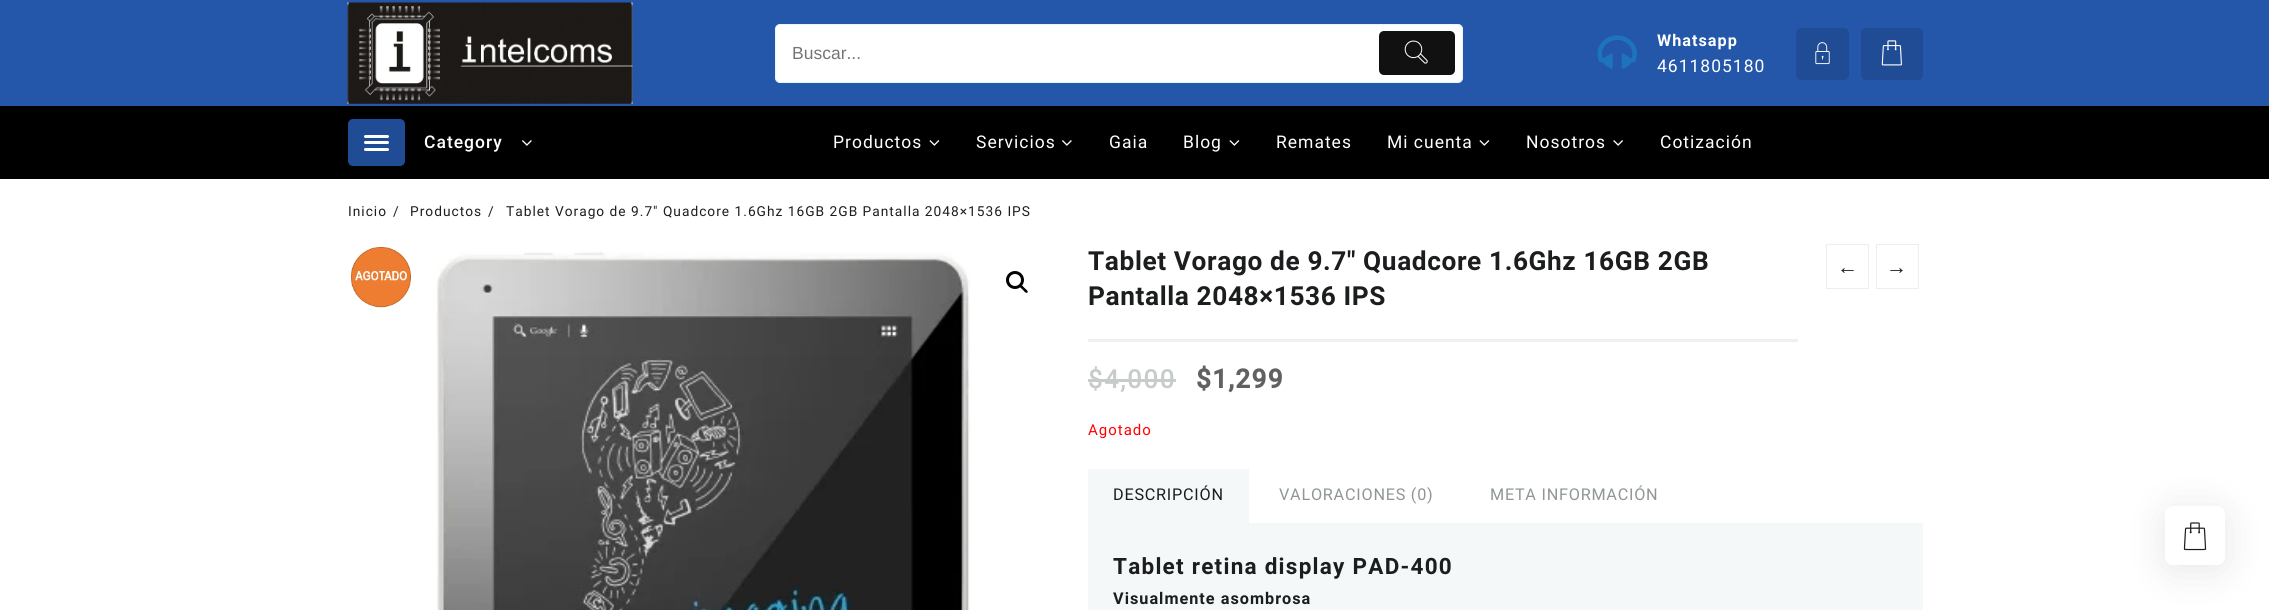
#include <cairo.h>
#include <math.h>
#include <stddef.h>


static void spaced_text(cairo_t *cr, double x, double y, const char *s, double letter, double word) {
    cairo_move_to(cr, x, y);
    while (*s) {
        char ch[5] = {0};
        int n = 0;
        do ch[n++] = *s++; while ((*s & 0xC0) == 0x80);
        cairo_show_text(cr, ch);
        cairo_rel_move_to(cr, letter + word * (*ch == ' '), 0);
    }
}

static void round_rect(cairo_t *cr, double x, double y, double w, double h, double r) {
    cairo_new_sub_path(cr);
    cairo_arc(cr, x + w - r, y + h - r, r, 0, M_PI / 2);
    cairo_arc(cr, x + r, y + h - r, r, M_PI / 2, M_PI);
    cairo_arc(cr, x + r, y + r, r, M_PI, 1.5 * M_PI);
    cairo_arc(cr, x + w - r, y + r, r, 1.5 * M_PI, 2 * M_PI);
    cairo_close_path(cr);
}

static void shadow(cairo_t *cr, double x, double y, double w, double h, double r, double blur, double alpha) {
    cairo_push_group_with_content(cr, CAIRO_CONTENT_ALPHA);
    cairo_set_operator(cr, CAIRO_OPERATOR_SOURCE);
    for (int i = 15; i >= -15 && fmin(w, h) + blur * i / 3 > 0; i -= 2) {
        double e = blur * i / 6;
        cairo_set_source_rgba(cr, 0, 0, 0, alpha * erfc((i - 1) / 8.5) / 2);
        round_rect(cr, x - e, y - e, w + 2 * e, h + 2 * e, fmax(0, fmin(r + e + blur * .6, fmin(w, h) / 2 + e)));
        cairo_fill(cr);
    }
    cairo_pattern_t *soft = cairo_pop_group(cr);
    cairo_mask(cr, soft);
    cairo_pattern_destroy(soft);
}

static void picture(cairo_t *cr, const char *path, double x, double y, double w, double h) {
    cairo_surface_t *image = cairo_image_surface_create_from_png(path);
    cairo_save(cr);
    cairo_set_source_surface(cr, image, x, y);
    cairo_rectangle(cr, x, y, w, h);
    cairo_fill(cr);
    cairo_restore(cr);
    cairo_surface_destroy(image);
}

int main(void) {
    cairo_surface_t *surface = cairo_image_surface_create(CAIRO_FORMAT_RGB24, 2269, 610);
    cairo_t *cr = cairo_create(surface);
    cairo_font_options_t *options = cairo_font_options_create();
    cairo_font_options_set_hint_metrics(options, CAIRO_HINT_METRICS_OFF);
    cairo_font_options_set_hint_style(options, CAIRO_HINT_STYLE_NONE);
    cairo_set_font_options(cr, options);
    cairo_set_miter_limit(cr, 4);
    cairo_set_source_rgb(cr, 1, 1, 1);
    cairo_paint(cr);
    cairo_set_source_rgb(cr, 0.141, 0.341, 0.667);
    cairo_rectangle(cr, 0, 0, 2269, 106);
    cairo_fill(cr);
    picture(cr, "img1.png", 347, 2, 286, 102);
    cairo_set_source_rgb(cr, 1, 1, 1);
    round_rect(cr, 775.5, 24.5, 687, 58, 4.5);
    cairo_fill_preserve(cr);
    cairo_set_source_rgb(cr, 0.906, 0.961, 1);
    cairo_set_line_width(cr, 1);
    cairo_stroke(cr);
    cairo_select_font_face(cr, "Liberation Sans", CAIRO_FONT_SLANT_NORMAL, CAIRO_FONT_WEIGHT_NORMAL);
    cairo_set_font_size(cr, 17.5);
    cairo_set_source_rgb(cr, 0.459, 0.459, 0.459);
    cairo_move_to(cr, 792, 59);
    cairo_show_text(cr, "Buscar...");
    cairo_set_source_rgb(cr, 0.067, 0.067, 0.067);
    round_rect(cr, 1379, 31, 76, 44, 5);
    cairo_fill(cr);
    picture(cr, "img2.png", 1404, 40, 24, 24);
    picture(cr, "img3.png", 1597, 35, 40, 34);
    cairo_select_font_face(cr, "Roboto", CAIRO_FONT_SLANT_NORMAL, CAIRO_FONT_WEIGHT_BOLD);
    cairo_set_font_size(cr, 16.25);
    cairo_set_source_rgb(cr, 1, 1, 1);
    spaced_text(cr, 1657, 46, "Whatsapp", 1, 0);
    cairo_select_font_face(cr, "Roboto", CAIRO_FONT_SLANT_NORMAL, CAIRO_FONT_WEIGHT_NORMAL);
    cairo_set_font_size(cr, 17.5);
    spaced_text(cr, 1657, 72, "4611805180", 1, 0);
    cairo_set_source_rgb(cr, 0.122, 0.298, 0.58);
    round_rect(cr, 1796, 28, 53, 52, 5);
    cairo_fill(cr);
    picture(cr, "img4.png", 1815, 42, 15, 23);
    round_rect(cr, 1861, 28, 62, 52, 5);
    cairo_fill(cr);
    picture(cr, "img5.png", 1881, 40, 21, 26);
    cairo_set_source_rgb(cr, 0, 0, 0);
    cairo_rectangle(cr, 0, 106, 2269, 73);
    cairo_fill(cr);
    cairo_set_source_rgb(cr, 0.122, 0.298, 0.58);
    round_rect(cr, 348, 119, 57, 47, 5);
    cairo_fill(cr);
    cairo_set_source_rgb(cr, 1, 1, 1);
    round_rect(cr, 364, 135, 25, 3, 1.5);
    cairo_fill(cr);
    round_rect(cr, 364, 141, 25, 3, 1.5);
    cairo_fill(cr);
    round_rect(cr, 364, 148, 25, 3, 1.5);
    cairo_fill(cr);
    cairo_select_font_face(cr, "Roboto Medium", CAIRO_FONT_SLANT_NORMAL, CAIRO_FONT_WEIGHT_NORMAL);
    spaced_text(cr, 424, 148, "Category", 1, 0);
    picture(cr, "img6.png", 522, 140, 10, 6);
    cairo_select_font_face(cr, "Roboto", CAIRO_FONT_SLANT_NORMAL, CAIRO_FONT_WEIGHT_NORMAL);
    spaced_text(cr, 833, 148, "Productos", 1, 0);
    picture(cr, "img7.png", 929, 140, 11, 6);
    spaced_text(cr, 976, 148, "Servicios", 1, 0);
    picture(cr, "img6.png", 1062, 140, 10, 6);
    spaced_text(cr, 1109, 148, "Gaia", 1, 0);
    spaced_text(cr, 1183, 148, "Blog", 1, 0);
    picture(cr, "img7.png", 1229, 140, 11, 6);
    spaced_text(cr, 1276, 148, "Remates", 1, 0);
    spaced_text(cr, 1387, 148, "Mi cuenta", 1, 0);
    picture(cr, "img7.png", 1479, 140, 11, 6);
    spaced_text(cr, 1526, 148, "Nosotros", 1, 0);
    picture(cr, "img8.png", 1613, 140, 10, 6);
    spaced_text(cr, 1660, 148, "Cotización", 1, 0);
    cairo_set_font_size(cr, 13.75);
    cairo_set_source_rgb(cr, 0.11, 0.114, 0.118);
    spaced_text(cr, 348, 216, "Inicio", 1, 0);
    spaced_text(cr, 393, 216, "/", 1, 0);
    spaced_text(cr, 410, 216, "Productos", 1, 0);
    spaced_text(cr, 488, 216, "/", 1, 0);
    spaced_text(cr, 506, 216, "Tablet Vorago de 9.7″ Quadcore 1.6Ghz 16GB 2GB Pantalla 2048×1536 IPS", 1, 0);
    picture(cr, "img9.png", 351, 247, 60, 61);
    picture(cr, "img10.png", 436, 251, 535, 359);
    cairo_arc(cr, 1015, 280, 7.5, 0, 2 * M_PI);
    cairo_set_source_rgb(cr, 0, 0, 0);
    cairo_set_line_width(cr, 3);
    cairo_stroke(cr);
    cairo_new_path(cr);
    cairo_move_to(cr, 1020, 285.5);
    cairo_curve_to(cr, 1021.5, 284, 1024, 287.5, 1024.5, 288);
    cairo_curve_to(cr, 1025.5, 289, 1028.5, 291, 1027.5, 292.5);
    cairo_curve_to(cr, 1026, 294, 1023.5, 290.5, 1023, 290);
    cairo_curve_to(cr, 1022, 289, 1019, 287, 1020, 285.5);
    cairo_close_path(cr);
    cairo_fill(cr);
    cairo_set_source_rgb(cr, 0.941, 0.941, 0.941);
    cairo_rectangle(cr, 1088, 339, 710, 3);
    cairo_fill(cr);
    cairo_select_font_face(cr, "Roboto", CAIRO_FONT_SLANT_NORMAL, CAIRO_FONT_WEIGHT_BOLD);
    cairo_set_font_size(cr, 26.25);
    cairo_set_source_rgb(cr, 0.11, 0.114, 0.118);
    spaced_text(cr, 1088, 270, "Tablet Vorago de 9.7″ Quadcore 1.6Ghz 16GB 2GB", 0.6, 0);
    spaced_text(cr, 1088, 305, "Pantalla 2048×1536 IPS", 0.6, 0);
    cairo_rectangle(cr, 1826.5, 244.5, 42, 44);
    cairo_set_source_rgb(cr, 0.933, 0.933, 0.933);
    cairo_set_line_width(cr, 1);
    cairo_stroke(cr);
    cairo_select_font_face(cr, "Liberation Sans", CAIRO_FONT_SLANT_NORMAL, CAIRO_FONT_WEIGHT_NORMAL);
    cairo_set_font_size(cr, 21);
    cairo_set_source_rgb(cr, 0.11, 0.114, 0.118);
    spaced_text(cr, 1837, 274, "←", 1, 0);
    cairo_rectangle(cr, 1876.5, 244.5, 42, 44);
    cairo_set_source_rgb(cr, 0.933, 0.933, 0.933);
    cairo_stroke(cr);
    cairo_set_source_rgb(cr, 0.11, 0.114, 0.118);
    spaced_text(cr, 1886, 274, "→", 1, 0);
    cairo_select_font_face(cr, "Roboto Medium", CAIRO_FONT_SLANT_NORMAL, CAIRO_FONT_WEIGHT_NORMAL);
    cairo_set_font_size(cr, 26.25);
    cairo_set_source_rgb(cr, 0.78, 0.796, 0.796);
    spaced_text(cr, 1088, 388, "$4,000", 1.25, 0);
    cairo_rectangle(cr, 1088, 379, 88, 3);
    cairo_fill(cr);
    cairo_select_font_face(cr, "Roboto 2", CAIRO_FONT_SLANT_NORMAL, CAIRO_FONT_WEIGHT_BOLD);
    cairo_set_source_rgb(cr, 0.384, 0.376, 0.376);
    spaced_text(cr, 1196, 388, "$1,299", 1.25, 0);
    cairo_select_font_face(cr, "Roboto", CAIRO_FONT_SLANT_NORMAL, CAIRO_FONT_WEIGHT_NORMAL);
    cairo_set_font_size(cr, 15);
    cairo_set_source_rgb(cr, 1, 0, 0);
    spaced_text(cr, 1088, 435, "Agotado", 1, 0);
    cairo_set_source_rgb(cr, 0.957, 0.969, 0.976);
    cairo_rectangle(cr, 1088, 469, 161, 54);
    cairo_fill(cr);
    cairo_set_font_size(cr, 16.25);
    cairo_set_source_rgb(cr, 0.11, 0.114, 0.118);
    spaced_text(cr, 1113, 500, "DESCRIPCIÓN", 0.75, 0);
    cairo_set_source_rgb(cr, 0.561, 0.588, 0.588);
    spaced_text(cr, 1279, 500, "VALORACIONES (0)", 0.75, 0);
    spaced_text(cr, 1490, 500, "META INFORMACIÓN", 0.75, 0);
    cairo_set_source_rgb(cr, 0.957, 0.969, 0.976);
    cairo_rectangle(cr, 1088, 523, 835, 87);
    cairo_fill(cr);
    cairo_select_font_face(cr, "Roboto", CAIRO_FONT_SLANT_NORMAL, CAIRO_FONT_WEIGHT_BOLD);
    cairo_set_font_size(cr, 22.5);
    cairo_set_source_rgb(cr, 0.11, 0.114, 0.118);
    spaced_text(cr, 1113, 574, "Tablet retina display PAD-400", 1.25, 0);
    cairo_set_font_size(cr, 16.25);
    spaced_text(cr, 1113, 604, "Visualmente asombrosa", 1, 0);
    cairo_save(cr);
    cairo_set_fill_rule(cr, CAIRO_FILL_RULE_EVEN_ODD);
    cairo_new_path(cr);
    cairo_move_to(cr, 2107, 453);
    cairo_line_to(cr, 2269, 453);
    cairo_line_to(cr, 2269, 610);
    cairo_line_to(cr, 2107, 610);
    cairo_close_path(cr);
    cairo_move_to(cr, 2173, 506);
    cairo_line_to(cr, 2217, 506);
    cairo_curve_to(cr, 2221.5, 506, 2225, 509.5, 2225, 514);
    cairo_line_to(cr, 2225, 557);
    cairo_curve_to(cr, 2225, 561.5, 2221.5, 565, 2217, 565);
    cairo_line_to(cr, 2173, 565);
    cairo_curve_to(cr, 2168.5, 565, 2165, 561.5, 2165, 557);
    cairo_line_to(cr, 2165, 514);
    cairo_curve_to(cr, 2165, 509.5, 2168.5, 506, 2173, 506);
    cairo_close_path(cr);
    cairo_clip(cr);
    cairo_set_source_rgb(cr, 0, 0, 0);
    shadow(cr, 2165, 511, 60, 59, 8, 19, 0.1);
    cairo_restore(cr);
    picture(cr, "img11.png", 2183, 522, 24, 29);
    cairo_surface_write_to_png(surface, "page.png");
    cairo_font_options_destroy(options);
    cairo_destroy(cr);
    cairo_surface_destroy(surface);
    return 0;
}
